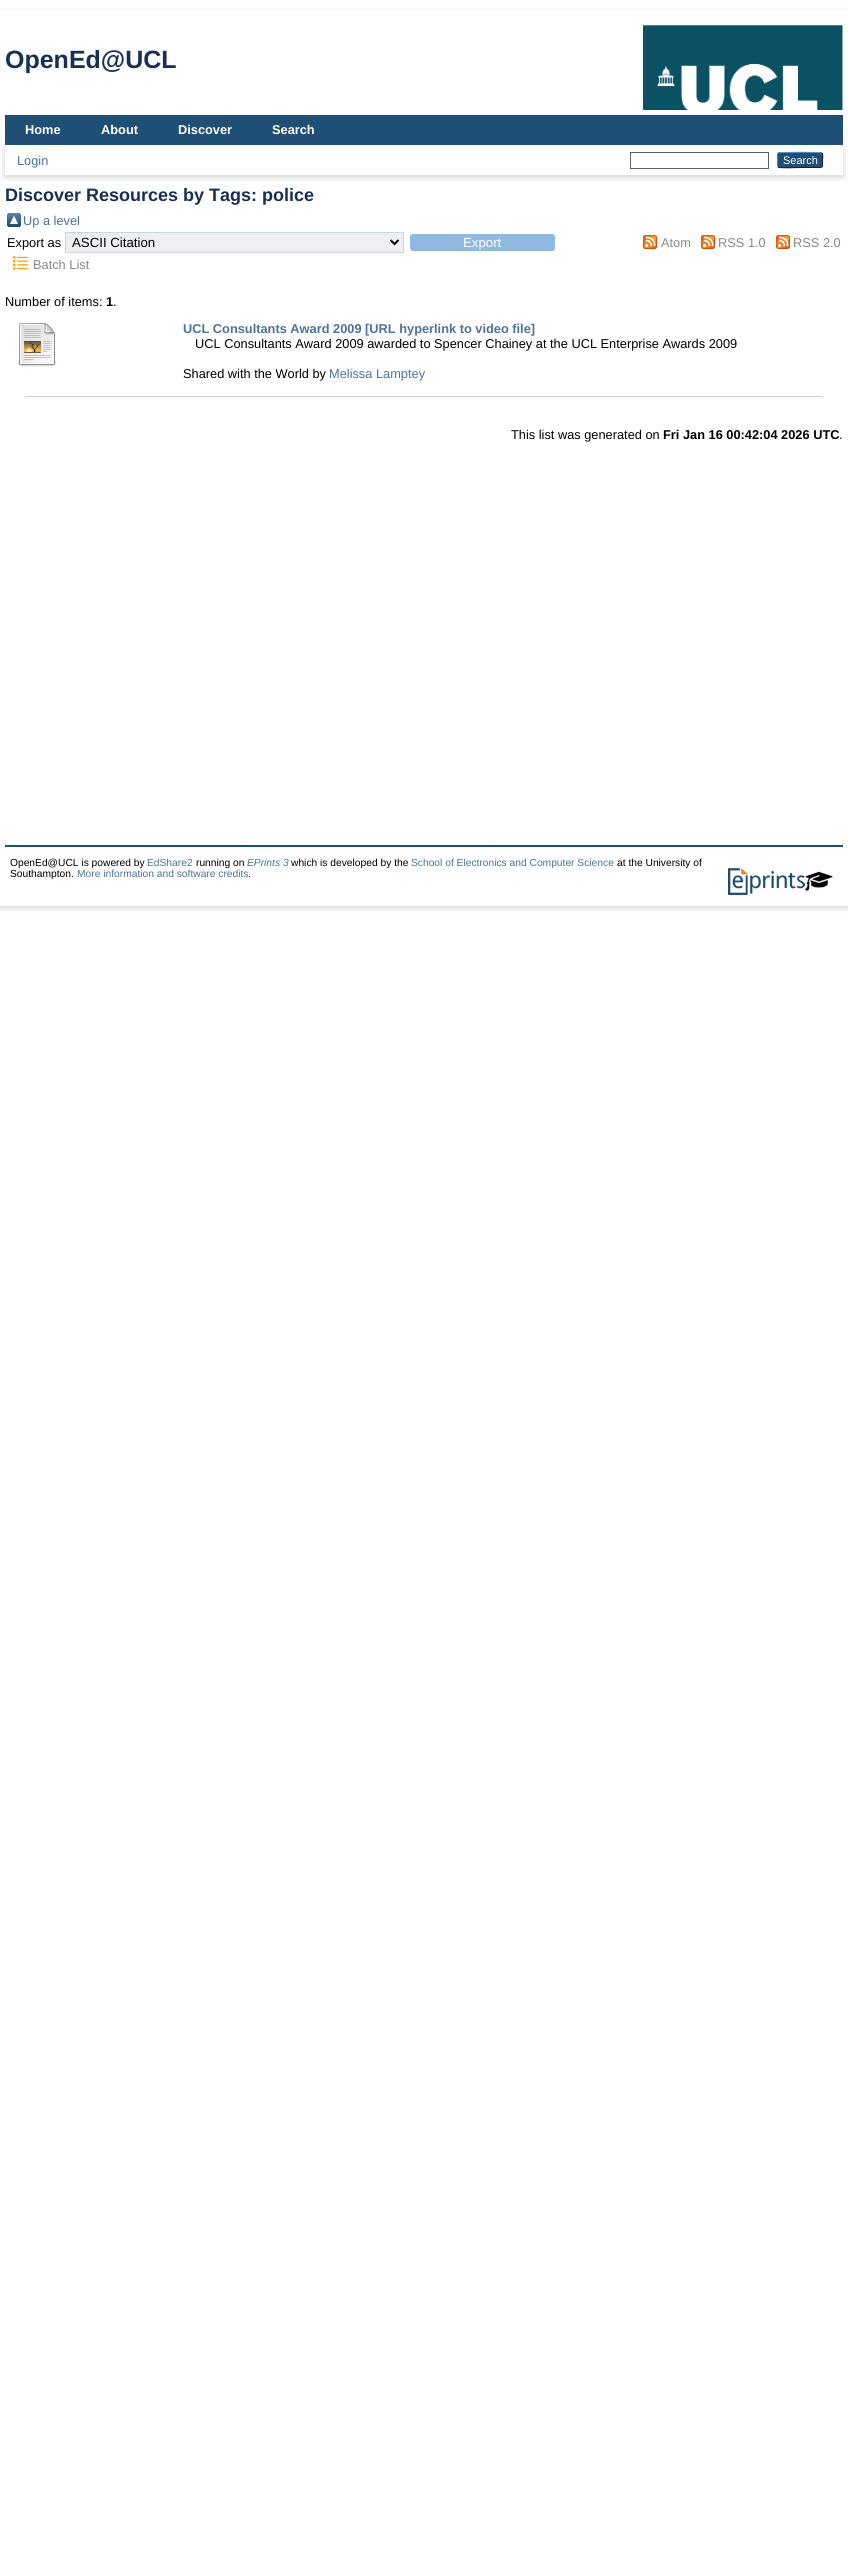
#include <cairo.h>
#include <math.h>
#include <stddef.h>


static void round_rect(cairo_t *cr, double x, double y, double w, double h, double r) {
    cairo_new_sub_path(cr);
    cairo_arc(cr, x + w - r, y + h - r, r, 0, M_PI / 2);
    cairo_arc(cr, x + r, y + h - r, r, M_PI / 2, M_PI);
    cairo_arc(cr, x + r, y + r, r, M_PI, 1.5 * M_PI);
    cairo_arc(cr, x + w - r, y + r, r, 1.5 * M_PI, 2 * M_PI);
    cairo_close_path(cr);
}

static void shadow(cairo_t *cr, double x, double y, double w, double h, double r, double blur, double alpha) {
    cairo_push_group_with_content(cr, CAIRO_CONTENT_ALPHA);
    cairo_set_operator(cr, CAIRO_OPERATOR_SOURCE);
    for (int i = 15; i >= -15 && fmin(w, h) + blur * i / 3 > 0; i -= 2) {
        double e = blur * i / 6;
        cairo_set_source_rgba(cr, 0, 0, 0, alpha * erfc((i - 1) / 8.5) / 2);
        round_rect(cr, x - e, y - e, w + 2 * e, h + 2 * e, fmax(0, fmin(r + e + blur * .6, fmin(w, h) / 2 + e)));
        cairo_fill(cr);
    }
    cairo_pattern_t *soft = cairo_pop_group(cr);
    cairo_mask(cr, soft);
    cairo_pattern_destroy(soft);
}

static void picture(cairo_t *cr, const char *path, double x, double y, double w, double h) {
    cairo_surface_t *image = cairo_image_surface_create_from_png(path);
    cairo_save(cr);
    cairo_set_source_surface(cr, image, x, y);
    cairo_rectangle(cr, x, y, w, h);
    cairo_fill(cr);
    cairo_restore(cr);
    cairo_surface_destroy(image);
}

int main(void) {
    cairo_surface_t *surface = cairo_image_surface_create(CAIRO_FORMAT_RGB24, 848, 2563);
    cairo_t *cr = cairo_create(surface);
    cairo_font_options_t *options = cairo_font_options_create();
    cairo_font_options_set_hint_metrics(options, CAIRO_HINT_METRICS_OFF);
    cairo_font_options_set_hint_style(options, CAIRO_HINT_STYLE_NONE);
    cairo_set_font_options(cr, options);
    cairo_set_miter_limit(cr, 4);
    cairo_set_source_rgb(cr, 1, 1, 1);
    cairo_paint(cr);
    cairo_save(cr);
    cairo_set_fill_rule(cr, CAIRO_FILL_RULE_EVEN_ODD);
    cairo_new_path(cr);
    cairo_move_to(cr, 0, 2);
    cairo_line_to(cr, 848, 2);
    cairo_line_to(cr, 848, 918);
    cairo_line_to(cr, 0, 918);
    cairo_close_path(cr);
    cairo_move_to(cr, 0, 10);
    cairo_line_to(cr, 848, 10);
    cairo_line_to(cr, 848, 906);
    cairo_line_to(cr, 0, 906);
    cairo_close_path(cr);
    cairo_clip(cr);
    cairo_set_source_rgb(cr, 0.392, 0.392, 0.392);
    shadow(cr, 0, 12, 848, 896, 0, 3, 0.3);
    cairo_restore(cr);
    cairo_select_font_face(cr, "Liberation Sans", CAIRO_FONT_SLANT_NORMAL, CAIRO_FONT_WEIGHT_BOLD);
    cairo_set_font_size(cr, 25);
    cairo_set_source_rgb(cr, 0.094, 0.192, 0.322);
    cairo_move_to(cr, 5, 68);
    cairo_show_text(cr, "OpenEd@UCL");
    picture(cr, "img1.png", 643, 25, 200, 85);
    cairo_set_source_rgb(cr, 0.125, 0.31, 0.463);
    cairo_rectangle(cr, 5, 115, 838, 30);
    cairo_fill(cr);
    cairo_set_font_size(cr, 12.8);
    cairo_set_source_rgb(cr, 1, 1, 1);
    cairo_move_to(cr, 25, 134);
    cairo_show_text(cr, "Home");
    cairo_move_to(cr, 101, 134);
    cairo_show_text(cr, "About");
    cairo_move_to(cr, 178, 134);
    cairo_show_text(cr, "Discover");
    cairo_move_to(cr, 272, 134);
    cairo_show_text(cr, "Search");
    cairo_save(cr);
    cairo_set_fill_rule(cr, CAIRO_FILL_RULE_EVEN_ODD);
    cairo_new_path(cr);
    cairo_move_to(cr, 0, 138);
    cairo_line_to(cr, 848, 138);
    cairo_line_to(cr, 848, 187);
    cairo_line_to(cr, 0, 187);
    cairo_close_path(cr);
    cairo_move_to(cr, 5, 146);
    cairo_line_to(cr, 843, 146);
    cairo_line_to(cr, 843, 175);
    cairo_line_to(cr, 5, 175);
    cairo_close_path(cr);
    cairo_clip(cr);
    cairo_set_source_rgb(cr, 0.392, 0.392, 0.392);
    shadow(cr, 5, 148, 838, 29, 0, 3, 0.3);
    cairo_restore(cr);
    cairo_select_font_face(cr, "Liberation Sans", CAIRO_FONT_SLANT_NORMAL, CAIRO_FONT_WEIGHT_NORMAL);
    cairo_set_source_rgb(cr, 0.298, 0.451, 0.612);
    cairo_move_to(cr, 17, 165);
    cairo_show_text(cr, "Login");
    cairo_rectangle(cr, 630.5, 152.5, 138, 16);
    cairo_set_source_rgb(cr, 0.376, 0.376, 0.376);
    cairo_set_line_width(cr, 1);
    cairo_stroke(cr);
    cairo_set_source_rgb(cr, 0.122, 0.31, 0.463);
    round_rect(cr, 777, 152, 46, 16, 3);
    cairo_fill(cr);
    cairo_new_path(cr);
    cairo_move_to(cr, 778, 153);
    cairo_curve_to(cr, 779.5, 152, 820.5, 152, 822, 153);
    cairo_set_source_rgb(cr, 0.357, 0.592, 0.78);
    cairo_stroke(cr);
    cairo_new_path(cr);
    cairo_move_to(cr, 822, 153);
    cairo_curve_to(cr, 823.5, 155, 822.5, 158, 822.5, 160);
    cairo_curve_to(cr, 822.5, 169, 823, 167.5, 813.5, 167.5);
    cairo_line_to(cr, 800, 167.5);
    cairo_curve_to(cr, 796.5, 167.5, 780, 168.5, 778, 167);
    cairo_set_source_rgb(cr, 0.051, 0.129, 0.192);
    cairo_stroke(cr);
    cairo_new_path(cr);
    cairo_move_to(cr, 778, 167);
    cairo_curve_to(cr, 777, 165.5, 777.5, 161.5, 777.5, 160);
    cairo_curve_to(cr, 777.5, 158.5, 777, 154.5, 778, 153);
    cairo_set_source_rgb(cr, 0.322, 0.529, 0.702);
    cairo_stroke(cr);
    cairo_set_font_size(cr, 11);
    cairo_set_source_rgb(cr, 1, 1, 1);
    cairo_move_to(cr, 783, 164);
    cairo_show_text(cr, "Search");
    cairo_select_font_face(cr, "Liberation Sans", CAIRO_FONT_SLANT_NORMAL, CAIRO_FONT_WEIGHT_BOLD);
    cairo_set_font_size(cr, 18);
    cairo_set_source_rgb(cr, 0.094, 0.192, 0.322);
    cairo_move_to(cr, 5, 201);
    cairo_show_text(cr, "Discover Resources by Tags: police");
    picture(cr, "img2.png", 7, 213, 14, 14);
    cairo_select_font_face(cr, "Liberation Sans", CAIRO_FONT_SLANT_NORMAL, CAIRO_FONT_WEIGHT_NORMAL);
    cairo_set_font_size(cr, 12.8);
    cairo_set_source_rgb(cr, 0.298, 0.451, 0.612);
    cairo_move_to(cr, 23, 225);
    cairo_show_text(cr, "Up a level");
    cairo_set_source_rgb(cr, 0, 0, 0);
    cairo_move_to(cr, 7, 247);
    cairo_show_text(cr, "Export as");
    cairo_set_source_rgb(cr, 0.937, 0.937, 0.937);
    cairo_rectangle(cr, 65.5, 232.5, 338, 20);
    cairo_fill_preserve(cr);
    cairo_set_source_rgb(cr, 0.769, 0.843, 0.929);
    cairo_stroke(cr);
    cairo_new_path(cr);
    cairo_move_to(cr, 390.5, 240);
    cairo_line_to(cr, 394.5, 244);
    cairo_line_to(cr, 398.5, 240);
    cairo_set_source_rgb(cr, 0, 0, 0);
    cairo_set_line_width(cr, 2);
    cairo_stroke(cr);
    cairo_set_font_size(cr, 13.25);
    cairo_move_to(cr, 72, 247);
    cairo_show_text(cr, "ASCII Citation");
    cairo_set_source_rgb(cr, 0.565, 0.725, 0.886);
    round_rect(cr, 410.5, 234.5, 144, 16, 2.5);
    cairo_fill_preserve(cr);
    cairo_set_line_width(cr, 1);
    cairo_stroke(cr);
    cairo_set_source_rgb(cr, 1, 1, 1);
    cairo_move_to(cr, 463, 247);
    cairo_show_text(cr, "Export");
    picture(cr, "img3.png", 643, 235, 14, 14);
    cairo_set_font_size(cr, 12.8);
    cairo_set_source_rgb(cr, 0.533, 0.533, 0.533);
    cairo_move_to(cr, 661, 247);
    cairo_show_text(cr, "Atom");
    picture(cr, "img3.png", 701, 235, 14, 14);
    cairo_move_to(cr, 718, 247);
    cairo_show_text(cr, "RSS 1.0");
    picture(cr, "img3.png", 776, 235, 14, 14);
    cairo_move_to(cr, 793, 247);
    cairo_show_text(cr, "RSS 2.0");
    picture(cr, "img4.png", 13, 256, 16, 14);
    cairo_move_to(cr, 33, 269);
    cairo_show_text(cr, "Batch List");
    cairo_set_source_rgb(cr, 0, 0, 0);
    cairo_move_to(cr, 5, 306);
    cairo_show_text(cr, "Number of items:");
    cairo_select_font_face(cr, "Liberation Sans", CAIRO_FONT_SLANT_NORMAL, CAIRO_FONT_WEIGHT_BOLD);
    cairo_move_to(cr, 106, 306);
    cairo_show_text(cr, "1");
    cairo_select_font_face(cr, "Liberation Sans", CAIRO_FONT_SLANT_NORMAL, CAIRO_FONT_WEIGHT_NORMAL);
    cairo_move_to(cr, 113, 306);
    cairo_show_text(cr, ".");
    picture(cr, "img5.png", 17, 323, 40, 44);
    cairo_select_font_face(cr, "Liberation Sans", CAIRO_FONT_SLANT_NORMAL, CAIRO_FONT_WEIGHT_BOLD);
    cairo_set_source_rgb(cr, 0.298, 0.451, 0.612);
    cairo_move_to(cr, 183, 333);
    cairo_show_text(cr, "UCL Consultants Award 2009 [URL hyperlink to video file]");
    cairo_select_font_face(cr, "Liberation Sans", CAIRO_FONT_SLANT_NORMAL, CAIRO_FONT_WEIGHT_NORMAL);
    cairo_set_source_rgb(cr, 0, 0, 0);
    cairo_move_to(cr, 195, 348);
    cairo_show_text(cr, "UCL Consultants Award 2009 awarded to Spencer Chainey at the UCL Enterprise Awards 2009");
    cairo_move_to(cr, 183, 378);
    cairo_show_text(cr, "Shared with the World by");
    cairo_set_source_rgb(cr, 0.298, 0.451, 0.612);
    cairo_move_to(cr, 329, 378);
    cairo_show_text(cr, "Melissa Lamptey");
    cairo_set_source_rgb(cr, 0.827, 0.827, 0.827);
    cairo_rectangle(cr, 25, 396, 798, 1);
    cairo_fill(cr);
    cairo_set_source_rgb(cr, 0, 0, 0);
    cairo_move_to(cr, 511, 439);
    cairo_show_text(cr, "This list was generated on");
    cairo_select_font_face(cr, "Liberation Sans", CAIRO_FONT_SLANT_NORMAL, CAIRO_FONT_WEIGHT_BOLD);
    cairo_move_to(cr, 663, 439);
    cairo_show_text(cr, "Fri Jan 16 00:42:04 2026 UTC");
    cairo_select_font_face(cr, "Liberation Sans", CAIRO_FONT_SLANT_NORMAL, CAIRO_FONT_WEIGHT_NORMAL);
    cairo_move_to(cr, 839, 439);
    cairo_show_text(cr, ".");
    cairo_set_source_rgb(cr, 0.125, 0.31, 0.463);
    cairo_rectangle(cr, 5, 845, 838, 2);
    cairo_fill(cr);
    cairo_set_font_size(cr, 10.25);
    cairo_set_source_rgb(cr, 0, 0, 0);
    cairo_move_to(cr, 10, 866);
    cairo_show_text(cr, "OpenEd@UCL is powered by");
    cairo_set_source_rgb(cr, 0.298, 0.451, 0.612);
    cairo_move_to(cr, 147, 866);
    cairo_show_text(cr, "EdShare2");
    cairo_set_source_rgb(cr, 0, 0, 0);
    cairo_move_to(cr, 196, 866);
    cairo_show_text(cr, "running on");
    cairo_select_font_face(cr, "Liberation Sans", CAIRO_FONT_SLANT_ITALIC, CAIRO_FONT_WEIGHT_NORMAL);
    cairo_set_source_rgb(cr, 0.298, 0.451, 0.612);
    cairo_move_to(cr, 247, 866);
    cairo_show_text(cr, "EPrints 3");
    cairo_select_font_face(cr, "Liberation Sans", CAIRO_FONT_SLANT_NORMAL, CAIRO_FONT_WEIGHT_NORMAL);
    cairo_set_source_rgb(cr, 0, 0, 0);
    cairo_move_to(cr, 291, 866);
    cairo_show_text(cr, "which is developed by the");
    cairo_set_source_rgb(cr, 0.298, 0.451, 0.612);
    cairo_move_to(cr, 411, 866);
    cairo_show_text(cr, "School of Electronics and Computer Science");
    cairo_set_source_rgb(cr, 0, 0, 0);
    cairo_move_to(cr, 617, 866);
    cairo_show_text(cr, "at the University of");
    cairo_move_to(cr, 10, 877);
    cairo_show_text(cr, "Southampton.");
    cairo_set_source_rgb(cr, 0.298, 0.451, 0.612);
    cairo_move_to(cr, 77, 877);
    cairo_show_text(cr, "More information and software credits");
    cairo_set_source_rgb(cr, 0, 0, 0);
    cairo_move_to(cr, 248, 877);
    cairo_show_text(cr, ".");
    picture(cr, "img6.png", 728, 868, 77, 27);
    picture(cr, "img7.png", 805, 871, 28, 20);
    cairo_surface_write_to_png(surface, "page.png");
    cairo_font_options_destroy(options);
    cairo_destroy(cr);
    cairo_surface_destroy(surface);
    return 0;
}
